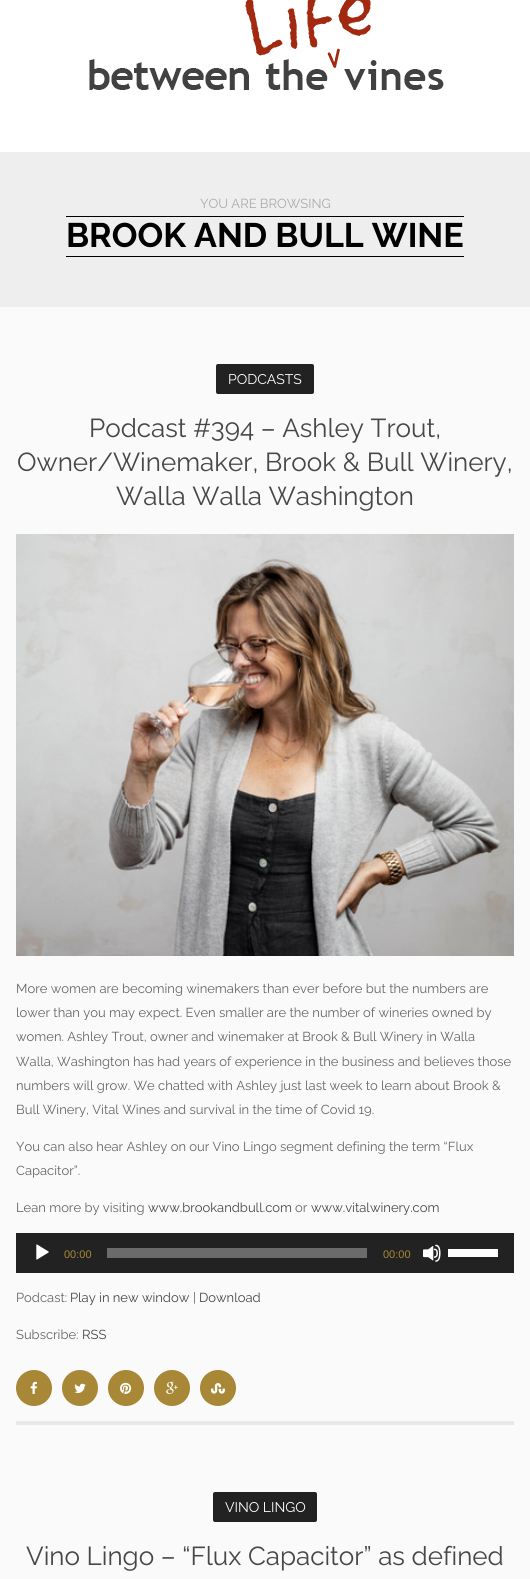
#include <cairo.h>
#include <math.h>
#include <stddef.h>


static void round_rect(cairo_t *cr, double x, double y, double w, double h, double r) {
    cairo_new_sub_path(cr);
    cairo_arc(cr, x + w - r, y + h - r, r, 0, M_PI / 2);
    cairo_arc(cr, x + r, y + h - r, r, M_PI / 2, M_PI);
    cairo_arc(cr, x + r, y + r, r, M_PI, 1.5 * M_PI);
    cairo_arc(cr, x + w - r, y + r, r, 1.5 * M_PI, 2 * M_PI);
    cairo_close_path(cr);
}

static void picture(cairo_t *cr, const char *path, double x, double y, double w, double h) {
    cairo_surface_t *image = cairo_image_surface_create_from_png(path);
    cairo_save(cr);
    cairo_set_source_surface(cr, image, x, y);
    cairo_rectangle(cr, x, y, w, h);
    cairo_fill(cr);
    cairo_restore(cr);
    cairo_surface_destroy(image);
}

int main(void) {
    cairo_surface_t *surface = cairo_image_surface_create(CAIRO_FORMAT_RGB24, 530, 1579);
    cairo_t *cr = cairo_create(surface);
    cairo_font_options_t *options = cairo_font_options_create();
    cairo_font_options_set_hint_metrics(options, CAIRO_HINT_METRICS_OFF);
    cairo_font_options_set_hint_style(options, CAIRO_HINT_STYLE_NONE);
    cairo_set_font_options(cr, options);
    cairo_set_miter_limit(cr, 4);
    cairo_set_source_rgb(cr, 1, 1, 1);
    cairo_paint(cr);
    picture(cr, "img1.png", 89, 0, 355, 90);
    cairo_set_source_rgb(cr, 0.933, 0.933, 0.933);
    cairo_rectangle(cr, 0, 152, 530, 155);
    cairo_fill(cr);
    cairo_select_font_face(cr, "Raleway", CAIRO_FONT_SLANT_NORMAL, CAIRO_FONT_WEIGHT_NORMAL);
    cairo_set_font_size(cr, 13);
    cairo_set_source_rgb(cr, 0.667, 0.667, 0.667);
    cairo_move_to(cr, 200, 208);
    cairo_show_text(cr, "YOU ARE BROWSING");
    cairo_set_source_rgb(cr, 0, 0, 0);
    cairo_rectangle(cr, 66, 216, 398, 1);
    cairo_fill(cr);
    cairo_rectangle(cr, 66, 256, 398, 1);
    cairo_fill(cr);
    cairo_select_font_face(cr, "Raleway", CAIRO_FONT_SLANT_NORMAL, CAIRO_FONT_WEIGHT_BOLD);
    cairo_set_font_size(cr, 34);
    cairo_move_to(cr, 66, 247);
    cairo_show_text(cr, "BROOK AND BULL WINE");
    cairo_set_source_rgb(cr, 0.98, 0.98, 0.98);
    cairo_rectangle(cr, 0, 307, 530, 1272);
    cairo_fill(cr);
    cairo_set_source_rgb(cr, 0.133, 0.133, 0.133);
    round_rect(cr, 216, 364, 98, 30, 2);
    cairo_fill(cr);
    cairo_select_font_face(cr, "Raleway", CAIRO_FONT_SLANT_NORMAL, CAIRO_FONT_WEIGHT_NORMAL);
    cairo_set_font_size(cr, 14);
    cairo_set_source_rgb(cr, 1, 1, 1);
    cairo_move_to(cr, 228, 384);
    cairo_show_text(cr, "PODCASTS");
    cairo_set_font_size(cr, 26);
    cairo_set_source_rgb(cr, 0.278, 0.278, 0.278);
    cairo_move_to(cr, 89, 437);
    cairo_show_text(cr, "Podcast #394 – Ashley Trout,");
    cairo_move_to(cr, 17, 471);
    cairo_show_text(cr, "Owner/Winemaker, Brook & Bull Winery,");
    cairo_move_to(cr, 116, 505);
    cairo_show_text(cr, "Walla Walla Washington");
    picture(cr, "img2.png", 16, 534, 498, 422);
    cairo_set_font_size(cr, 13);
    cairo_set_source_rgb(cr, 0.4, 0.4, 0.4);
    cairo_move_to(cr, 16, 993);
    cairo_show_text(cr, "More women are becoming winemakers than ever before but the numbers are");
    cairo_move_to(cr, 16, 1017);
    cairo_show_text(cr, "lower than you may expect. Even smaller are the number of wineries owned by");
    cairo_move_to(cr, 16, 1041);
    cairo_show_text(cr, "women. Ashley Trout, owner and winemaker at Brook & Bull Winery in Walla");
    cairo_move_to(cr, 16, 1066);
    cairo_show_text(cr, "Walla, Washington has had years of experience in the business and believes those");
    cairo_move_to(cr, 16, 1090);
    cairo_show_text(cr, "numbers will grow. We chatted with Ashley just last week to learn about Brook &");
    cairo_move_to(cr, 16, 1114);
    cairo_show_text(cr, "Bull Winery, Vital Wines and survival in the time of Covid 19.");
    cairo_move_to(cr, 16, 1151);
    cairo_show_text(cr, "You can also hear Ashley on our Vino Lingo segment defining the term “Flux");
    cairo_move_to(cr, 16, 1175);
    cairo_show_text(cr, "Capacitor”.");
    cairo_move_to(cr, 16, 1212);
    cairo_show_text(cr, "Lean more by visiting");
    cairo_set_source_rgb(cr, 0.278, 0.278, 0.278);
    cairo_move_to(cr, 148, 1212);
    cairo_show_text(cr, "www.brookandbull.com");
    cairo_set_source_rgb(cr, 0.4, 0.4, 0.4);
    cairo_move_to(cr, 295, 1212);
    cairo_show_text(cr, "or");
    cairo_set_source_rgb(cr, 0.278, 0.278, 0.278);
    cairo_move_to(cr, 311, 1212);
    cairo_show_text(cr, "www.vitalwinery.com");
    cairo_set_source_rgb(cr, 0.133, 0.133, 0.133);
    cairo_rectangle(cr, 16, 1233, 498, 40);
    cairo_fill(cr);
    picture(cr, "img3.png", 36, 1244, 13, 16);
    cairo_select_font_face(cr, "Liberation Sans", CAIRO_FONT_SLANT_NORMAL, CAIRO_FONT_WEIGHT_NORMAL);
    cairo_set_font_size(cr, 11);
    cairo_set_source_rgb(cr, 0.659, 0.533, 0.216);
    cairo_move_to(cr, 64, 1258);
    cairo_show_text(cr, "00:00");
    cairo_set_source_rgb(cr, 0.42, 0.42, 0.42);
    cairo_rectangle(cr, 107, 1248, 260, 10);
    cairo_fill(cr);
    cairo_set_source_rgb(cr, 0.659, 0.533, 0.216);
    cairo_move_to(cr, 383, 1258);
    cairo_show_text(cr, "00:00");
    picture(cr, "img4.png", 423, 1244, 18, 18);
    cairo_set_source_rgb(cr, 1, 1, 1);
    cairo_rectangle(cr, 448, 1249, 50, 8);
    cairo_fill(cr);
    cairo_select_font_face(cr, "Raleway", CAIRO_FONT_SLANT_NORMAL, CAIRO_FONT_WEIGHT_NORMAL);
    cairo_set_font_size(cr, 13);
    cairo_set_source_rgb(cr, 0.4, 0.4, 0.4);
    cairo_move_to(cr, 16, 1302);
    cairo_show_text(cr, "Podcast:");
    cairo_set_source_rgb(cr, 0.278, 0.278, 0.278);
    cairo_move_to(cr, 70, 1302);
    cairo_show_text(cr, "Play in new window");
    cairo_set_source_rgb(cr, 0.4, 0.4, 0.4);
    cairo_move_to(cr, 193, 1302);
    cairo_show_text(cr, "|");
    cairo_set_source_rgb(cr, 0.278, 0.278, 0.278);
    cairo_move_to(cr, 199, 1302);
    cairo_show_text(cr, "Download");
    cairo_set_source_rgb(cr, 0.4, 0.4, 0.4);
    cairo_move_to(cr, 16, 1339);
    cairo_show_text(cr, "Subscribe:");
    cairo_set_source_rgb(cr, 0.278, 0.278, 0.278);
    cairo_move_to(cr, 82, 1339);
    cairo_show_text(cr, "RSS");
    cairo_set_source_rgb(cr, 0.91, 0.91, 0.91);
    cairo_rectangle(cr, 16, 1421, 498, 4);
    cairo_fill(cr);
    cairo_set_source_rgb(cr, 0.659, 0.533, 0.216);
    cairo_arc(cr, 34, 1388, 18, 0, 2 * M_PI);
    cairo_fill(cr);
    picture(cr, "img5.png", 30, 1381, 7, 13);
    cairo_arc(cr, 80, 1388, 18, 0, 2 * M_PI);
    cairo_fill(cr);
    picture(cr, "img6.png", 74, 1383, 12, 10);
    cairo_arc(cr, 126, 1388, 18, 0, 2 * M_PI);
    cairo_fill(cr);
    picture(cr, "img7.png", 120, 1382, 12, 12);
    cairo_arc(cr, 172, 1388, 18, 0, 2 * M_PI);
    cairo_fill(cr);
    picture(cr, "img8.png", 166, 1381, 12, 13);
    cairo_arc(cr, 218, 1388, 18, 0, 2 * M_PI);
    cairo_fill(cr);
    picture(cr, "img9.png", 211, 1383, 14, 11);
    cairo_set_source_rgb(cr, 0.133, 0.133, 0.133);
    round_rect(cr, 213, 1492, 104, 30, 2);
    cairo_fill(cr);
    cairo_set_font_size(cr, 14);
    cairo_set_source_rgb(cr, 1, 1, 1);
    cairo_move_to(cr, 225, 1512);
    cairo_show_text(cr, "VINO LINGO");
    cairo_set_font_size(cr, 26);
    cairo_set_source_rgb(cr, 0.278, 0.278, 0.278);
    cairo_move_to(cr, 26, 1565);
    cairo_show_text(cr, "Vino Lingo – “Flux Capacitor” as defined");
    cairo_surface_write_to_png(surface, "page.png");
    cairo_font_options_destroy(options);
    cairo_destroy(cr);
    cairo_surface_destroy(surface);
    return 0;
}
